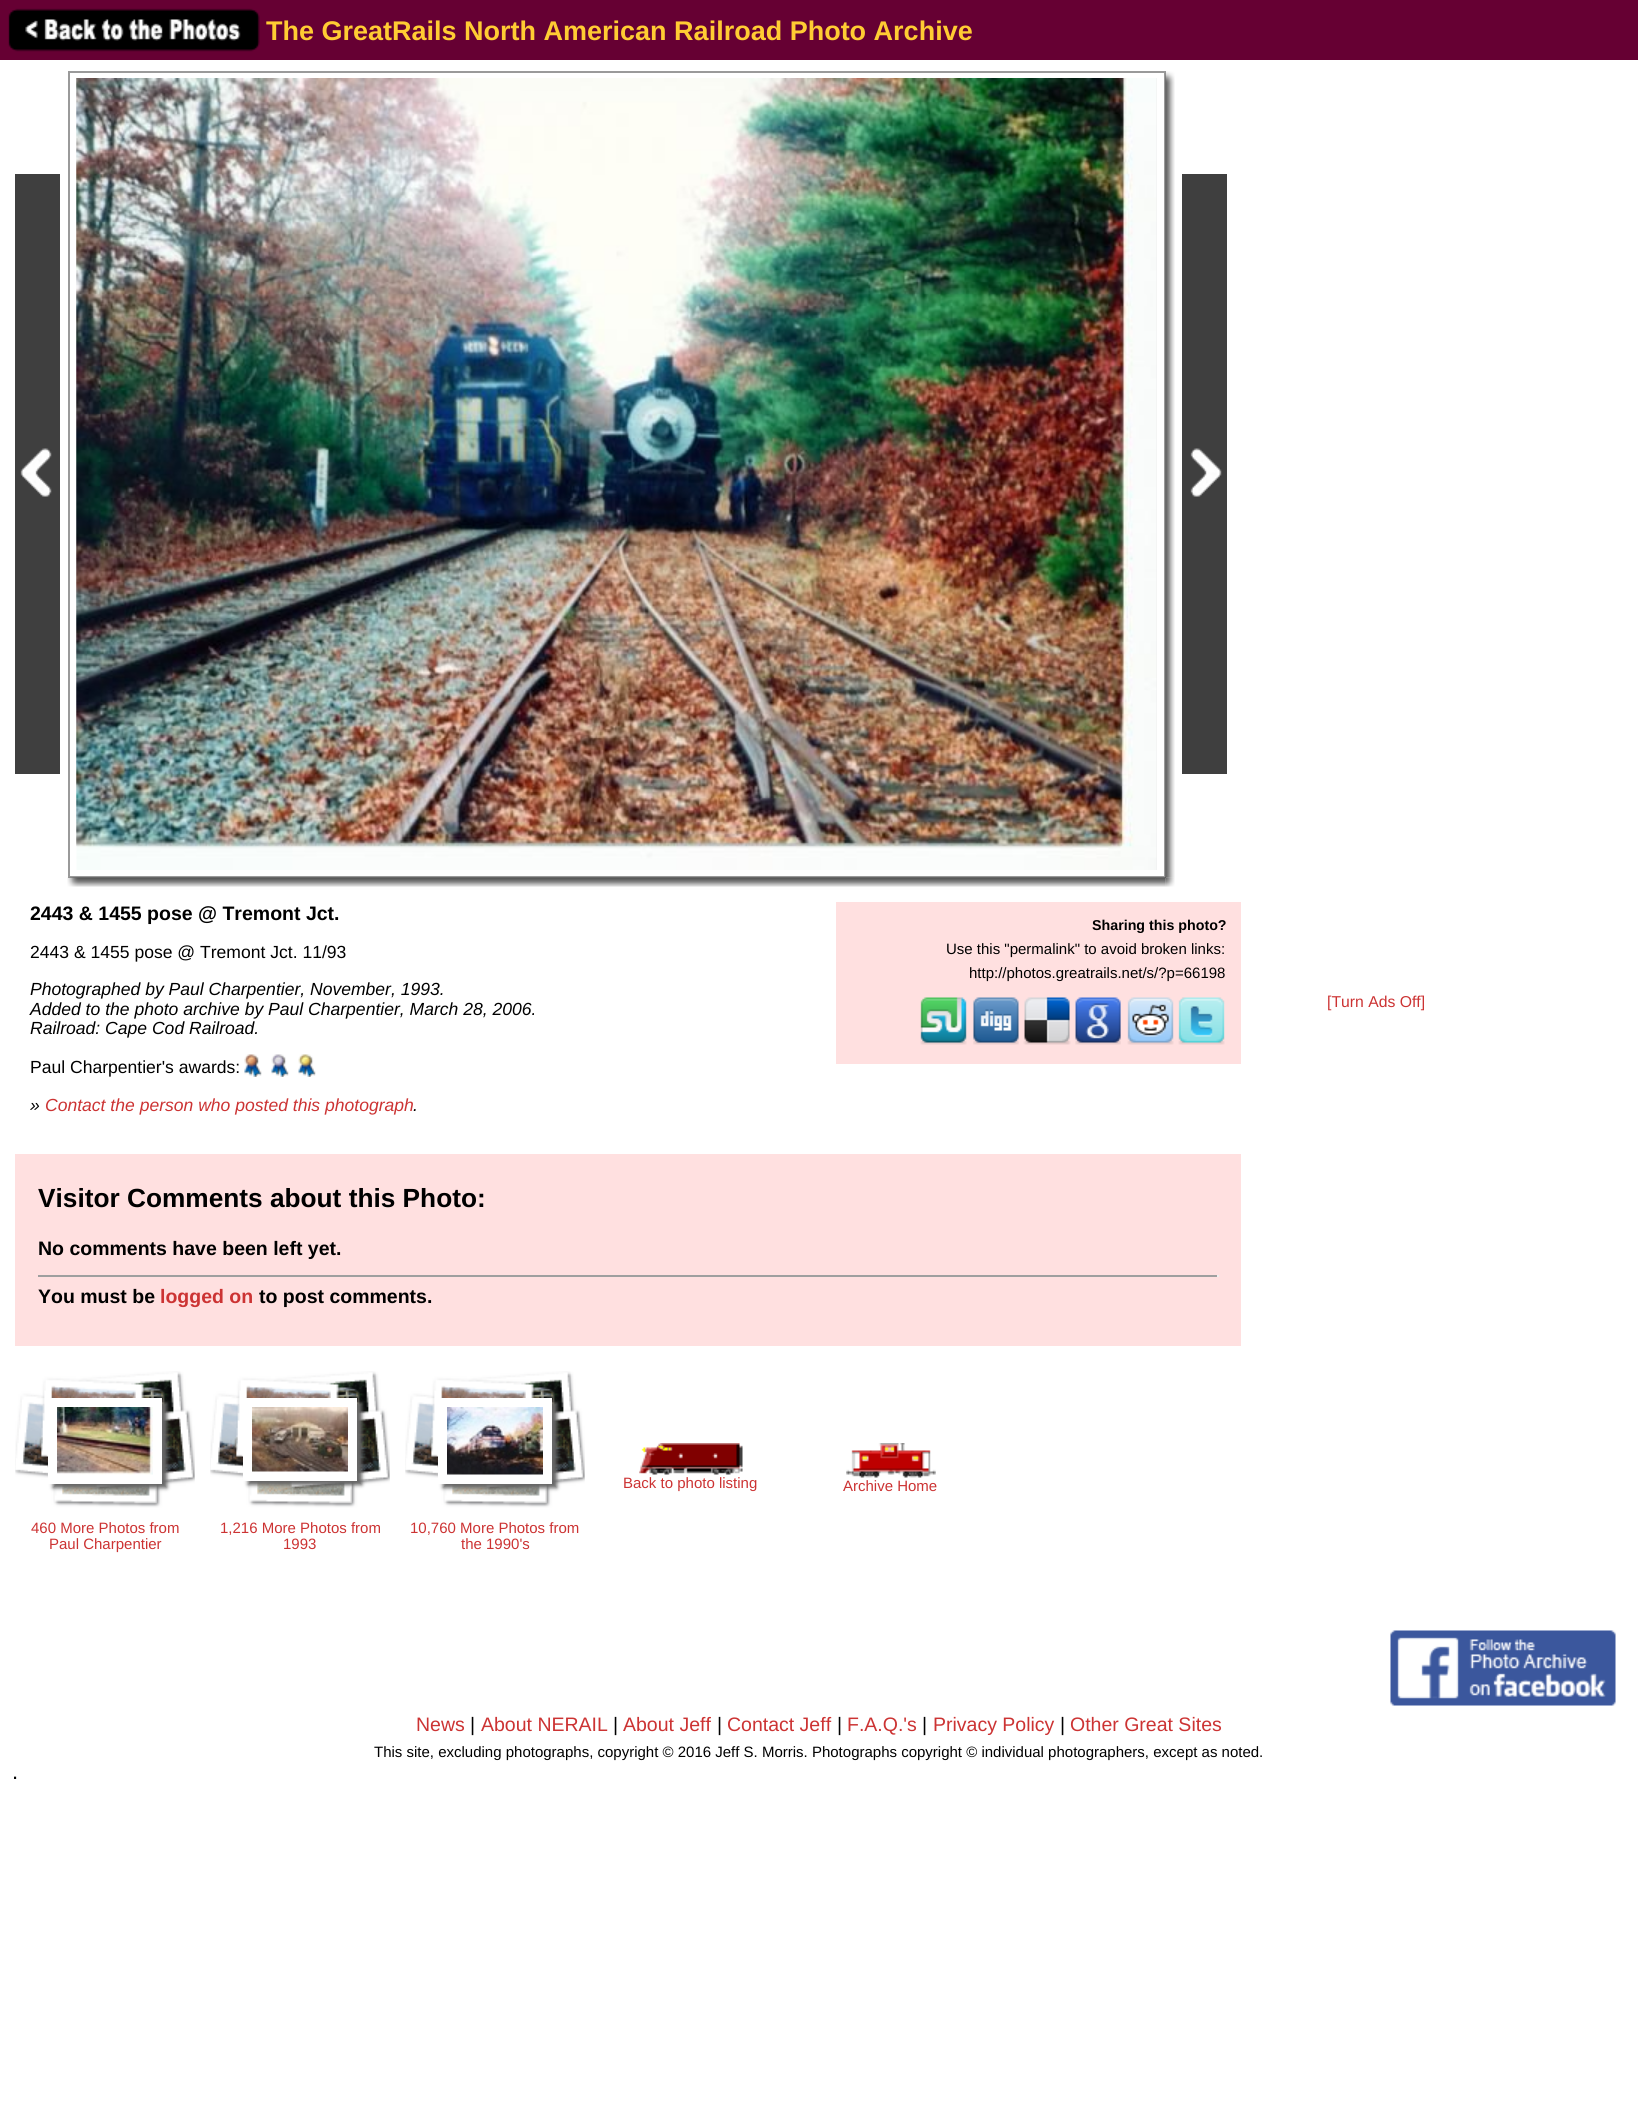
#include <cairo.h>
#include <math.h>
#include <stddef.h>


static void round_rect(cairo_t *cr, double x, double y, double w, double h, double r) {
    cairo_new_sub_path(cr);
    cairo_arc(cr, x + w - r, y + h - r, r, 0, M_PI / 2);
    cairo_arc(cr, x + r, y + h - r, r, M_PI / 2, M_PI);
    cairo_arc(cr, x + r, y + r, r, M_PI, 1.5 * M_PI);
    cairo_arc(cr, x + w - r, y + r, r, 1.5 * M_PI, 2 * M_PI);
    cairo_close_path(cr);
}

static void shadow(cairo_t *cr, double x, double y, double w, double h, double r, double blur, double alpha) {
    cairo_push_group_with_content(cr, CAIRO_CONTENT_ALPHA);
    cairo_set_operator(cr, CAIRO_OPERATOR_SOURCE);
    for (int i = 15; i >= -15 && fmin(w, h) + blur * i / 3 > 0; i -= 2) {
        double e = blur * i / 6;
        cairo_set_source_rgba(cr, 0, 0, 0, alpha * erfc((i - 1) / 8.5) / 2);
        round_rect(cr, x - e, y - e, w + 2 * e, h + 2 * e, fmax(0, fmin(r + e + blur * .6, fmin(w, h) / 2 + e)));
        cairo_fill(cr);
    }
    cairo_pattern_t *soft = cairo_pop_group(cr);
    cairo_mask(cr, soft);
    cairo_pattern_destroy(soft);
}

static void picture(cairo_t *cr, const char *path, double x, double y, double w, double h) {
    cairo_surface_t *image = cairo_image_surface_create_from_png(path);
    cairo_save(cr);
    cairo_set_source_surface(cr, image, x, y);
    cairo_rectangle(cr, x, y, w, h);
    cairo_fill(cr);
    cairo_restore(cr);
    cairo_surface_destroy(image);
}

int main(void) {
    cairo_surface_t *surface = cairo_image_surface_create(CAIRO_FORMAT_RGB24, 1638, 2112);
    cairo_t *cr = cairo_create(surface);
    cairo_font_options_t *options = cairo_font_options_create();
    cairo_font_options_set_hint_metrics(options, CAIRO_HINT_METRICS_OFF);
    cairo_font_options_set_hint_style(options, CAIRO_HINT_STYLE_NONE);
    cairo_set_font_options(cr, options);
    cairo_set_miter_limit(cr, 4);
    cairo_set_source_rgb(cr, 1, 1, 1);
    cairo_paint(cr);
    cairo_set_source_rgb(cr, 0.4, 0, 0.2);
    cairo_rectangle(cr, 0, 0, 1638, 60);
    cairo_fill(cr);
    picture(cr, "img1.png", 8, 8, 252, 44);
    cairo_select_font_face(cr, "Liberation Sans", CAIRO_FONT_SLANT_NORMAL, CAIRO_FONT_WEIGHT_BOLD);
    cairo_set_font_size(cr, 27);
    cairo_set_source_rgb(cr, 1, 0.8, 0.2);
    cairo_move_to(cr, 266, 40);
    cairo_show_text(cr, "The GreatRails North American Railroad Photo Archive");
    picture(cr, "img2.png", 15, 174, 45, 600);
    cairo_rectangle(cr, 69, 72, 1096, 805);
    cairo_set_source_rgb(cr, 0.604, 0.604, 0.604);
    cairo_stroke(cr);
    cairo_set_source_rgb(cr, 0.933, 0.933, 0.933);
    cairo_rectangle(cr, 1156, 78, 1, 792);
    cairo_fill(cr);
    picture(cr, "img3.png", 76, 78, 1081, 792);
    picture(cr, "img4.png", 76, 78, 1, 768);
    picture(cr, "img5.png", 1165, 71, 10, 807);
    picture(cr, "img6.png", 1182, 174, 45, 600);
    picture(cr, "img7.png", 67, 877, 1099, 10);
    picture(cr, "img8.png", 1165, 877, 10, 10);
    cairo_set_font_size(cr, 19.5);
    cairo_set_source_rgb(cr, 0, 0, 0);
    cairo_move_to(cr, 30, 920);
    cairo_show_text(cr, "2443 & 1455 pose @ Tremont Jct.");
    cairo_select_font_face(cr, "Liberation Sans", CAIRO_FONT_SLANT_NORMAL, CAIRO_FONT_WEIGHT_NORMAL);
    cairo_set_font_size(cr, 17.55);
    cairo_move_to(cr, 30, 958);
    cairo_show_text(cr, "2443 & 1455 pose @ Tremont Jct. 11/93");
    cairo_select_font_face(cr, "Liberation Sans", CAIRO_FONT_SLANT_ITALIC, CAIRO_FONT_WEIGHT_NORMAL);
    cairo_move_to(cr, 30, 995);
    cairo_show_text(cr, "Photographed by Paul Charpentier, November, 1993.");
    cairo_move_to(cr, 30, 1015);
    cairo_show_text(cr, "Added to the photo archive by Paul Charpentier, March 28, 2006.");
    cairo_move_to(cr, 30, 1034);
    cairo_show_text(cr, "Railroad: Cape Cod Railroad.");
    cairo_select_font_face(cr, "Liberation Sans", CAIRO_FONT_SLANT_NORMAL, CAIRO_FONT_WEIGHT_NORMAL);
    cairo_move_to(cr, 30, 1073);
    cairo_show_text(cr, "Paul Charpentier's awards:");
    picture(cr, "img9.png", 244, 1054, 18, 23);
    picture(cr, "img10.png", 271, 1054, 18, 23);
    picture(cr, "img11.png", 298, 1054, 18, 23);
    cairo_select_font_face(cr, "Liberation Sans", CAIRO_FONT_SLANT_ITALIC, CAIRO_FONT_WEIGHT_NORMAL);
    cairo_move_to(cr, 30, 1111);
    cairo_show_text(cr, "»");
    cairo_set_source_rgb(cr, 0.8, 0.2, 0.2);
    cairo_move_to(cr, 45, 1111);
    cairo_show_text(cr, "Contact the person who posted this photograph");
    cairo_set_source_rgb(cr, 0, 0, 0);
    cairo_move_to(cr, 413, 1111);
    cairo_show_text(cr, ".");
    cairo_set_source_rgb(cr, 1, 0.878, 0.878);
    cairo_rectangle(cr, 836, 902, 405, 162);
    cairo_fill(cr);
    cairo_select_font_face(cr, "Liberation Sans", CAIRO_FONT_SLANT_NORMAL, CAIRO_FONT_WEIGHT_BOLD);
    cairo_set_font_size(cr, 14.25);
    cairo_set_source_rgb(cr, 0, 0, 0);
    cairo_move_to(cr, 1092, 930);
    cairo_show_text(cr, "Sharing this photo?");
    cairo_select_font_face(cr, "Liberation Sans", CAIRO_FONT_SLANT_NORMAL, CAIRO_FONT_WEIGHT_NORMAL);
    cairo_set_font_size(cr, 15);
    cairo_move_to(cr, 946, 954);
    cairo_show_text(cr, "Use this \"permalink\" to avoid broken links:");
    cairo_move_to(cr, 969, 978);
    cairo_show_text(cr, "http://photos.greatrails.net/s/?p=66198");
    picture(cr, "img12.png", 920, 997, 47, 48);
    picture(cr, "img13.png", 973, 997, 46, 48);
    picture(cr, "img14.png", 1023, 997, 48, 48);
    picture(cr, "img15.png", 1075, 997, 46, 48);
    picture(cr, "img16.png", 1127, 997, 47, 48);
    picture(cr, "img17.png", 1178, 997, 47, 48);
    cairo_set_font_size(cr, 15.75);
    cairo_set_source_rgb(cr, 0.8, 0.2, 0.2);
    cairo_move_to(cr, 1327, 1007);
    cairo_show_text(cr, "[Turn Ads Off]");
    cairo_set_source_rgb(cr, 1, 0.878, 0.878);
    cairo_rectangle(cr, 15, 1154, 1226, 192);
    cairo_fill(cr);
    cairo_select_font_face(cr, "Liberation Sans", CAIRO_FONT_SLANT_NORMAL, CAIRO_FONT_WEIGHT_BOLD);
    cairo_set_font_size(cr, 26.25);
    cairo_set_source_rgb(cr, 0, 0, 0);
    cairo_move_to(cr, 38, 1207);
    cairo_show_text(cr, "Visitor Comments about this Photo:");
    cairo_set_font_size(cr, 19.5);
    cairo_move_to(cr, 38, 1255);
    cairo_show_text(cr, "No comments have been left yet.");
    cairo_set_source_rgb(cr, 0.624, 0.624, 0.624);
    cairo_rectangle(cr, 38, 1275, 1180, 2);
    cairo_fill(cr);
    cairo_set_source_rgb(cr, 0.933, 0.933, 0.933);
    cairo_rectangle(cr, 1217, 1275, 2, 2);
    cairo_fill(cr);
    cairo_set_source_rgb(cr, 0, 0, 0);
    cairo_move_to(cr, 38, 1303);
    cairo_show_text(cr, "You must be");
    cairo_set_source_rgb(cr, 0.8, 0.2, 0.2);
    cairo_move_to(cr, 160, 1303);
    cairo_show_text(cr, "logged on");
    cairo_set_source_rgb(cr, 0, 0, 0);
    cairo_move_to(cr, 259, 1303);
    cairo_show_text(cr, "to post comments.");
    picture(cr, "img18.png", 639, 1443, 104, 32);
    cairo_select_font_face(cr, "Liberation Sans", CAIRO_FONT_SLANT_NORMAL, CAIRO_FONT_WEIGHT_NORMAL);
    cairo_set_font_size(cr, 15);
    cairo_set_source_rgb(cr, 0.8, 0.2, 0.2);
    cairo_move_to(cr, 623, 1488);
    cairo_show_text(cr, "Back to photo listing");
    picture(cr, "img19.png", 846, 1443, 90, 35);
    cairo_move_to(cr, 843, 1491);
    cairo_show_text(cr, "Archive Home");
    picture(cr, "img20.png", 15, 1371, 180, 137);
    cairo_set_source_rgb(cr, 0.4, 0.4, 0.4);
    shadow(cr, 53, 1403, 114, 85, 0, 2, 1);
    cairo_set_source_rgb(cr, 1, 1, 1);
    cairo_rectangle(cr, 48, 1398, 114, 86);
    cairo_fill(cr);
    picture(cr, "img21.png", 57, 1407, 96, 68);
    cairo_set_source_rgb(cr, 0.8, 0.2, 0.2);
    cairo_move_to(cr, 31, 1533);
    cairo_show_text(cr, "460 More Photos from");
    cairo_move_to(cr, 49, 1549);
    cairo_show_text(cr, "Paul Charpentier");
    picture(cr, "img20.png", 210, 1371, 180, 137);
    cairo_set_source_rgb(cr, 0.4, 0.4, 0.4);
    shadow(cr, 248, 1403, 114, 82, 0, 2, 1);
    cairo_set_source_rgb(cr, 1, 1, 1);
    cairo_rectangle(cr, 243, 1398, 114, 83);
    cairo_fill(cr);
    picture(cr, "img22.png", 252, 1407, 96, 65);
    cairo_set_source_rgb(cr, 0.8, 0.2, 0.2);
    cairo_move_to(cr, 220, 1533);
    cairo_show_text(cr, "1,216 More Photos from");
    cairo_move_to(cr, 283, 1549);
    cairo_show_text(cr, "1993");
    picture(cr, "img23.png", 405, 1371, 180, 137);
    cairo_set_source_rgb(cr, 0.4, 0.4, 0.4);
    shadow(cr, 443, 1403, 114, 85, 0, 2, 1);
    cairo_set_source_rgb(cr, 1, 1, 1);
    cairo_rectangle(cr, 438, 1398, 114, 86);
    cairo_fill(cr);
    picture(cr, "img24.png", 447, 1407, 96, 68);
    cairo_set_source_rgb(cr, 0.8, 0.2, 0.2);
    cairo_move_to(cr, 410, 1533);
    cairo_show_text(cr, "10,760 More Photos from");
    cairo_move_to(cr, 461, 1549);
    cairo_show_text(cr, "the 1990's");
    picture(cr, "img25.png", 1390, 1630, 226, 76);
    cairo_set_font_size(cr, 19.5);
    cairo_move_to(cr, 416, 1731);
    cairo_show_text(cr, "News");
    cairo_set_source_rgb(cr, 0, 0, 0);
    cairo_move_to(cr, 470, 1731);
    cairo_show_text(cr, "|");
    cairo_set_source_rgb(cr, 0.8, 0.2, 0.2);
    cairo_move_to(cr, 481, 1731);
    cairo_show_text(cr, "About NERAIL");
    cairo_set_source_rgb(cr, 0, 0, 0);
    cairo_move_to(cr, 613, 1731);
    cairo_show_text(cr, "|");
    cairo_set_source_rgb(cr, 0.8, 0.2, 0.2);
    cairo_move_to(cr, 623, 1731);
    cairo_show_text(cr, "About Jeff");
    cairo_set_source_rgb(cr, 0, 0, 0);
    cairo_move_to(cr, 717, 1731);
    cairo_show_text(cr, "|");
    cairo_set_source_rgb(cr, 0.8, 0.2, 0.2);
    cairo_move_to(cr, 727, 1731);
    cairo_show_text(cr, "Contact Jeff");
    cairo_set_source_rgb(cr, 0, 0, 0);
    cairo_move_to(cr, 837, 1731);
    cairo_show_text(cr, "|");
    cairo_set_source_rgb(cr, 0.8, 0.2, 0.2);
    cairo_move_to(cr, 847, 1731);
    cairo_show_text(cr, "F.A.Q.'s");
    cairo_set_source_rgb(cr, 0, 0, 0);
    cairo_move_to(cr, 922, 1731);
    cairo_show_text(cr, "|");
    cairo_set_source_rgb(cr, 0.8, 0.2, 0.2);
    cairo_move_to(cr, 933, 1731);
    cairo_show_text(cr, "Privacy Policy");
    cairo_set_source_rgb(cr, 0, 0, 0);
    cairo_move_to(cr, 1060, 1731);
    cairo_show_text(cr, "|");
    cairo_set_source_rgb(cr, 0.8, 0.2, 0.2);
    cairo_move_to(cr, 1070, 1731);
    cairo_show_text(cr, "Other Great Sites");
    cairo_set_font_size(cr, 15);
    cairo_set_source_rgb(cr, 0, 0, 0);
    cairo_move_to(cr, 374, 1757);
    cairo_show_text(cr, "This site, excluding photographs, copyright © 2016 Jeff S. Morris. Photographs copyright © individual photographers, except as noted.");
    cairo_set_font_size(cr, 22);
    cairo_move_to(cr, 12, 1779);
    cairo_show_text(cr, ".");
    cairo_surface_write_to_png(surface, "page.png");
    cairo_font_options_destroy(options);
    cairo_destroy(cr);
    cairo_surface_destroy(surface);
    return 0;
}
